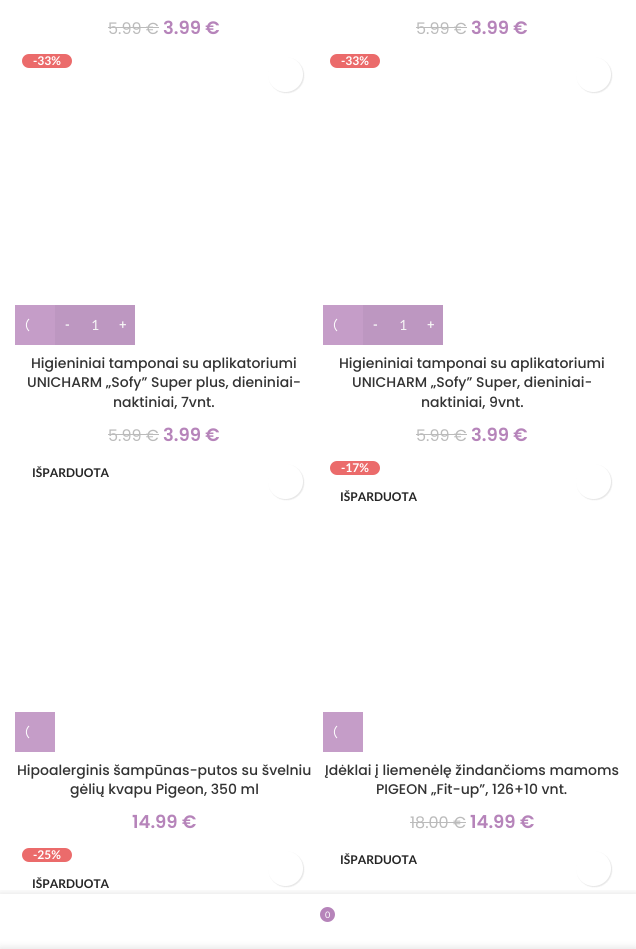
#include <cairo.h>
#include <math.h>
#include <stddef.h>


static void round_rect(cairo_t *cr, double x, double y, double w, double h, double r) {
    cairo_new_sub_path(cr);
    cairo_arc(cr, x + w - r, y + h - r, r, 0, M_PI / 2);
    cairo_arc(cr, x + r, y + h - r, r, M_PI / 2, M_PI);
    cairo_arc(cr, x + r, y + r, r, M_PI, 1.5 * M_PI);
    cairo_arc(cr, x + w - r, y + r, r, 1.5 * M_PI, 2 * M_PI);
    cairo_close_path(cr);
}

static void shadow(cairo_t *cr, double x, double y, double w, double h, double r, double blur, double alpha) {
    cairo_push_group_with_content(cr, CAIRO_CONTENT_ALPHA);
    cairo_set_operator(cr, CAIRO_OPERATOR_SOURCE);
    for (int i = 15; i >= -15 && fmin(w, h) + blur * i / 3 > 0; i -= 2) {
        double e = blur * i / 6;
        cairo_set_source_rgba(cr, 0, 0, 0, alpha * erfc((i - 1) / 8.5) / 2);
        round_rect(cr, x - e, y - e, w + 2 * e, h + 2 * e, fmax(0, fmin(r + e + blur * .6, fmin(w, h) / 2 + e)));
        cairo_fill(cr);
    }
    cairo_pattern_t *soft = cairo_pop_group(cr);
    cairo_mask(cr, soft);
    cairo_pattern_destroy(soft);
}

int main(void) {
    cairo_surface_t *surface = cairo_image_surface_create(CAIRO_FORMAT_RGB24, 636, 949);
    cairo_t *cr = cairo_create(surface);
    cairo_font_options_t *options = cairo_font_options_create();
    cairo_font_options_set_hint_metrics(options, CAIRO_HINT_METRICS_OFF);
    cairo_font_options_set_hint_style(options, CAIRO_HINT_STYLE_NONE);
    cairo_set_font_options(cr, options);
    cairo_set_miter_limit(cr, 4);
    cairo_set_source_rgb(cr, 1, 1, 1);
    cairo_paint(cr);
    cairo_select_font_face(cr, "Poppins", CAIRO_FONT_SLANT_NORMAL, CAIRO_FONT_WEIGHT_NORMAL);
    cairo_set_font_size(cr, 16);
    cairo_set_source_rgb(cr, 0.733, 0.733, 0.733);
    cairo_move_to(cr, 108, 34);
    cairo_show_text(cr, "5.99 €");
    cairo_rectangle(cr, 108, 27, 51, 1);
    cairo_fill(cr);
    cairo_select_font_face(cr, "Poppins SemiBold", CAIRO_FONT_SLANT_NORMAL, CAIRO_FONT_WEIGHT_NORMAL);
    cairo_set_font_size(cr, 18);
    cairo_set_source_rgb(cr, 0.714, 0.518, 0.729);
    cairo_move_to(cr, 163, 34);
    cairo_show_text(cr, "3.99 €");
    cairo_select_font_face(cr, "Poppins", CAIRO_FONT_SLANT_NORMAL, CAIRO_FONT_WEIGHT_NORMAL);
    cairo_set_font_size(cr, 16);
    cairo_set_source_rgb(cr, 0.733, 0.733, 0.733);
    cairo_move_to(cr, 416, 34);
    cairo_show_text(cr, "5.99 €");
    cairo_rectangle(cr, 416, 27, 51, 1);
    cairo_fill(cr);
    cairo_select_font_face(cr, "Poppins SemiBold", CAIRO_FONT_SLANT_NORMAL, CAIRO_FONT_WEIGHT_NORMAL);
    cairo_set_font_size(cr, 18);
    cairo_set_source_rgb(cr, 0.714, 0.518, 0.729);
    cairo_move_to(cr, 471, 34);
    cairo_show_text(cr, "3.99 €");
    cairo_set_source_rgb(cr, 0.918, 0.42, 0.42);
    round_rect(cr, 22, 54, 50, 14, 7);
    cairo_fill(cr);
    cairo_select_font_face(cr, "Lato", CAIRO_FONT_SLANT_NORMAL, CAIRO_FONT_WEIGHT_BOLD);
    cairo_set_font_size(cr, 12);
    cairo_set_source_rgb(cr, 1, 1, 1);
    cairo_move_to(cr, 33, 65);
    cairo_show_text(cr, "-33%");
    cairo_set_source_rgb(cr, 0, 0, 0);
    shadow(cr, 269, 58, 35, 35, 17.5, 0.5, 0.1);
    cairo_set_source_rgb(cr, 1, 1, 1);
    cairo_arc(cr, 285.5, 74.5, 17.5, 0, 2 * M_PI);
    cairo_fill(cr);
    cairo_set_source_rgb(cr, 0.773, 0.616, 0.784);
    cairo_rectangle(cr, 15, 305, 40, 40);
    cairo_fill(cr);
    cairo_new_path(cr);
    cairo_move_to(cr, 29, 331);
    cairo_curve_to(cr, 25.5, 327.5, 25.5, 322.5, 29, 319);
    cairo_set_source_rgb(cr, 1, 1, 1);
    cairo_set_line_width(cr, 1);
    cairo_stroke(cr);
    cairo_set_source_rgb(cr, 0.741, 0.592, 0.757);
    cairo_rectangle(cr, 55, 305, 80, 40);
    cairo_fill(cr);
    cairo_set_font_size(cr, 13);
    cairo_set_source_rgb(cr, 0.961, 0.961, 0.961);
    cairo_move_to(cr, 65, 329);
    cairo_show_text(cr, "-");
    cairo_select_font_face(cr, "Lato", CAIRO_FONT_SLANT_NORMAL, CAIRO_FONT_WEIGHT_NORMAL);
    cairo_set_font_size(cr, 14);
    cairo_move_to(cr, 91, 330);
    cairo_show_text(cr, "1");
    cairo_select_font_face(cr, "Lato", CAIRO_FONT_SLANT_NORMAL, CAIRO_FONT_WEIGHT_BOLD);
    cairo_set_font_size(cr, 13);
    cairo_move_to(cr, 119, 329);
    cairo_show_text(cr, "+");
    cairo_select_font_face(cr, "Poppins Medium", CAIRO_FONT_SLANT_NORMAL, CAIRO_FONT_WEIGHT_NORMAL);
    cairo_set_font_size(cr, 14);
    cairo_set_source_rgb(cr, 0.2, 0.2, 0.2);
    cairo_move_to(cr, 31, 368);
    cairo_show_text(cr, "Higieniniai tamponai su aplikatoriumi");
    cairo_move_to(cr, 27, 387);
    cairo_show_text(cr, "UNICHARM „Sofy” Super plus, dieniniai-");
    cairo_move_to(cr, 113, 407);
    cairo_show_text(cr, "naktiniai, 7vnt.");
    cairo_select_font_face(cr, "Poppins", CAIRO_FONT_SLANT_NORMAL, CAIRO_FONT_WEIGHT_NORMAL);
    cairo_set_font_size(cr, 16);
    cairo_set_source_rgb(cr, 0.733, 0.733, 0.733);
    cairo_move_to(cr, 108, 441);
    cairo_show_text(cr, "5.99 €");
    cairo_rectangle(cr, 108, 434, 51, 1);
    cairo_fill(cr);
    cairo_select_font_face(cr, "Poppins SemiBold", CAIRO_FONT_SLANT_NORMAL, CAIRO_FONT_WEIGHT_NORMAL);
    cairo_set_font_size(cr, 18);
    cairo_set_source_rgb(cr, 0.714, 0.518, 0.729);
    cairo_move_to(cr, 163, 441);
    cairo_show_text(cr, "3.99 €");
    cairo_set_source_rgb(cr, 0.918, 0.42, 0.42);
    round_rect(cr, 330, 54, 50, 14, 7);
    cairo_fill(cr);
    cairo_select_font_face(cr, "Lato", CAIRO_FONT_SLANT_NORMAL, CAIRO_FONT_WEIGHT_BOLD);
    cairo_set_font_size(cr, 12);
    cairo_set_source_rgb(cr, 1, 1, 1);
    cairo_move_to(cr, 341, 65);
    cairo_show_text(cr, "-33%");
    cairo_set_source_rgb(cr, 0, 0, 0);
    shadow(cr, 577, 58, 35, 35, 17.5, 0.5, 0.1);
    cairo_set_source_rgb(cr, 1, 1, 1);
    cairo_arc(cr, 593.5, 74.5, 17.5, 0, 2 * M_PI);
    cairo_fill(cr);
    cairo_set_source_rgb(cr, 0.773, 0.616, 0.784);
    cairo_rectangle(cr, 323, 305, 40, 40);
    cairo_fill(cr);
    cairo_new_path(cr);
    cairo_move_to(cr, 337, 331);
    cairo_curve_to(cr, 333.5, 327.5, 333.5, 322.5, 337, 319);
    cairo_set_source_rgb(cr, 1, 1, 1);
    cairo_stroke(cr);
    cairo_set_source_rgb(cr, 0.741, 0.592, 0.757);
    cairo_rectangle(cr, 363, 305, 80, 40);
    cairo_fill(cr);
    cairo_set_font_size(cr, 13);
    cairo_set_source_rgb(cr, 0.961, 0.961, 0.961);
    cairo_move_to(cr, 373, 329);
    cairo_show_text(cr, "-");
    cairo_select_font_face(cr, "Lato", CAIRO_FONT_SLANT_NORMAL, CAIRO_FONT_WEIGHT_NORMAL);
    cairo_set_font_size(cr, 14);
    cairo_move_to(cr, 399, 330);
    cairo_show_text(cr, "1");
    cairo_select_font_face(cr, "Lato", CAIRO_FONT_SLANT_NORMAL, CAIRO_FONT_WEIGHT_BOLD);
    cairo_set_font_size(cr, 13);
    cairo_move_to(cr, 427, 329);
    cairo_show_text(cr, "+");
    cairo_select_font_face(cr, "Poppins Medium", CAIRO_FONT_SLANT_NORMAL, CAIRO_FONT_WEIGHT_NORMAL);
    cairo_set_font_size(cr, 14);
    cairo_set_source_rgb(cr, 0.2, 0.2, 0.2);
    cairo_move_to(cr, 339, 368);
    cairo_show_text(cr, "Higieniniai tamponai su aplikatoriumi");
    cairo_move_to(cr, 352, 387);
    cairo_show_text(cr, "UNICHARM „Sofy” Super, dieniniai-");
    cairo_move_to(cr, 421, 407);
    cairo_show_text(cr, "naktiniai, 9vnt.");
    cairo_select_font_face(cr, "Poppins", CAIRO_FONT_SLANT_NORMAL, CAIRO_FONT_WEIGHT_NORMAL);
    cairo_set_font_size(cr, 16);
    cairo_set_source_rgb(cr, 0.733, 0.733, 0.733);
    cairo_move_to(cr, 416, 441);
    cairo_show_text(cr, "5.99 €");
    cairo_rectangle(cr, 416, 434, 51, 1);
    cairo_fill(cr);
    cairo_select_font_face(cr, "Poppins SemiBold", CAIRO_FONT_SLANT_NORMAL, CAIRO_FONT_WEIGHT_NORMAL);
    cairo_set_font_size(cr, 18);
    cairo_set_source_rgb(cr, 0.714, 0.518, 0.729);
    cairo_move_to(cr, 471, 441);
    cairo_show_text(cr, "3.99 €");
    cairo_select_font_face(cr, "Lato", CAIRO_FONT_SLANT_NORMAL, CAIRO_FONT_WEIGHT_BOLD);
    cairo_set_font_size(cr, 12);
    cairo_set_source_rgb(cr, 0.141, 0.141, 0.141);
    cairo_move_to(cr, 32, 477);
    cairo_show_text(cr, "IŠPARDUOTA");
    cairo_set_source_rgb(cr, 0, 0, 0);
    shadow(cr, 269, 465, 35, 35, 17.5, 0.5, 0.1);
    cairo_set_source_rgb(cr, 1, 1, 1);
    cairo_arc(cr, 285.5, 481.5, 17.5, 0, 2 * M_PI);
    cairo_fill(cr);
    cairo_set_source_rgb(cr, 0.773, 0.616, 0.784);
    cairo_rectangle(cr, 15, 712, 40, 40);
    cairo_fill(cr);
    cairo_new_path(cr);
    cairo_move_to(cr, 29, 738);
    cairo_curve_to(cr, 25.5, 734.5, 25.5, 729.5, 29, 726);
    cairo_set_source_rgb(cr, 1, 1, 1);
    cairo_stroke(cr);
    cairo_select_font_face(cr, "Poppins Medium", CAIRO_FONT_SLANT_NORMAL, CAIRO_FONT_WEIGHT_NORMAL);
    cairo_set_font_size(cr, 14);
    cairo_set_source_rgb(cr, 0.2, 0.2, 0.2);
    cairo_move_to(cr, 17, 775);
    cairo_show_text(cr, "Hipoalerginis šampūnas-putos su švelniu");
    cairo_move_to(cr, 70, 794);
    cairo_show_text(cr, "gėlių kvapu Pigeon, 350 ml");
    cairo_select_font_face(cr, "Poppins SemiBold", CAIRO_FONT_SLANT_NORMAL, CAIRO_FONT_WEIGHT_NORMAL);
    cairo_set_font_size(cr, 18);
    cairo_set_source_rgb(cr, 0.714, 0.518, 0.729);
    cairo_move_to(cr, 132, 828);
    cairo_show_text(cr, "14.99 €");
    cairo_set_source_rgb(cr, 0.918, 0.42, 0.42);
    round_rect(cr, 330, 461, 50, 14, 7);
    cairo_fill(cr);
    cairo_select_font_face(cr, "Lato", CAIRO_FONT_SLANT_NORMAL, CAIRO_FONT_WEIGHT_BOLD);
    cairo_set_font_size(cr, 12);
    cairo_set_source_rgb(cr, 1, 1, 1);
    cairo_move_to(cr, 341, 472);
    cairo_show_text(cr, "-17%");
    cairo_set_source_rgb(cr, 0.141, 0.141, 0.141);
    cairo_move_to(cr, 340, 501);
    cairo_show_text(cr, "IŠPARDUOTA");
    cairo_set_source_rgb(cr, 0, 0, 0);
    shadow(cr, 577, 465, 35, 35, 17.5, 0.5, 0.1);
    cairo_set_source_rgb(cr, 1, 1, 1);
    cairo_arc(cr, 593.5, 481.5, 17.5, 0, 2 * M_PI);
    cairo_fill(cr);
    cairo_set_source_rgb(cr, 0.773, 0.616, 0.784);
    cairo_rectangle(cr, 323, 712, 40, 40);
    cairo_fill(cr);
    cairo_new_path(cr);
    cairo_move_to(cr, 337, 738);
    cairo_curve_to(cr, 333.5, 734.5, 333.5, 729.5, 337, 726);
    cairo_set_source_rgb(cr, 1, 1, 1);
    cairo_stroke(cr);
    cairo_select_font_face(cr, "Poppins Medium", CAIRO_FONT_SLANT_NORMAL, CAIRO_FONT_WEIGHT_NORMAL);
    cairo_set_font_size(cr, 14);
    cairo_set_source_rgb(cr, 0.2, 0.2, 0.2);
    cairo_move_to(cr, 325, 775);
    cairo_show_text(cr, "Įdėklai į liemenėlę žindančioms mamoms");
    cairo_move_to(cr, 376, 794);
    cairo_show_text(cr, "PIGEON „Fit-up”, 126+10 vnt.");
    cairo_select_font_face(cr, "Poppins", CAIRO_FONT_SLANT_NORMAL, CAIRO_FONT_WEIGHT_NORMAL);
    cairo_set_font_size(cr, 16);
    cairo_set_source_rgb(cr, 0.733, 0.733, 0.733);
    cairo_move_to(cr, 410, 828);
    cairo_show_text(cr, "18.00 €");
    cairo_rectangle(cr, 410, 822, 56, 1);
    cairo_fill(cr);
    cairo_select_font_face(cr, "Poppins SemiBold", CAIRO_FONT_SLANT_NORMAL, CAIRO_FONT_WEIGHT_NORMAL);
    cairo_set_font_size(cr, 18);
    cairo_set_source_rgb(cr, 0.714, 0.518, 0.729);
    cairo_move_to(cr, 470, 828);
    cairo_show_text(cr, "14.99 €");
    cairo_set_source_rgb(cr, 0.918, 0.42, 0.42);
    round_rect(cr, 22, 848, 50, 14, 7);
    cairo_fill(cr);
    cairo_select_font_face(cr, "Lato", CAIRO_FONT_SLANT_NORMAL, CAIRO_FONT_WEIGHT_BOLD);
    cairo_set_font_size(cr, 12);
    cairo_set_source_rgb(cr, 1, 1, 1);
    cairo_move_to(cr, 33, 859);
    cairo_show_text(cr, "-25%");
    cairo_set_source_rgb(cr, 0.141, 0.141, 0.141);
    cairo_move_to(cr, 32, 888);
    cairo_show_text(cr, "IŠPARDUOTA");
    cairo_set_source_rgb(cr, 0, 0, 0);
    shadow(cr, 269, 852, 35, 35, 17.5, 0.5, 0.1);
    cairo_set_source_rgb(cr, 1, 1, 1);
    cairo_arc(cr, 285.5, 868.5, 17.5, 0, 2 * M_PI);
    cairo_fill(cr);
    cairo_set_source_rgb(cr, 0.141, 0.141, 0.141);
    cairo_move_to(cr, 340, 864);
    cairo_show_text(cr, "IŠPARDUOTA");
    cairo_set_source_rgb(cr, 0, 0, 0);
    shadow(cr, 577, 852, 35, 35, 17.5, 0.5, 0.1);
    cairo_set_source_rgb(cr, 1, 1, 1);
    cairo_arc(cr, 593.5, 868.5, 17.5, 0, 2 * M_PI);
    cairo_fill(cr);
    cairo_save(cr);
    cairo_rectangle(cr, 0, 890, 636, 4);
    cairo_clip(cr);
    cairo_set_source_rgb(cr, 0, 0, 0);
    shadow(cr, 0, 894, 636, 55, 0, 4.5, 0.12);
    cairo_restore(cr);
    cairo_set_source_rgb(cr, 0.714, 0.518, 0.729);
    cairo_arc(cr, 327.5, 914.5, 7.5, 0, 2 * M_PI);
    cairo_fill(cr);
    cairo_select_font_face(cr, "Lato", CAIRO_FONT_SLANT_NORMAL, CAIRO_FONT_WEIGHT_NORMAL);
    cairo_set_font_size(cr, 9);
    cairo_set_source_rgb(cr, 1, 1, 1);
    cairo_move_to(cr, 325, 918);
    cairo_show_text(cr, "0");
    cairo_set_source_rgb(cr, 0, 0, 0);
    shadow(cr, 0, 949, 636, 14, 0, 4.5, 0.14);
    cairo_surface_write_to_png(surface, "page.png");
    cairo_font_options_destroy(options);
    cairo_destroy(cr);
    cairo_surface_destroy(surface);
    return 0;
}
